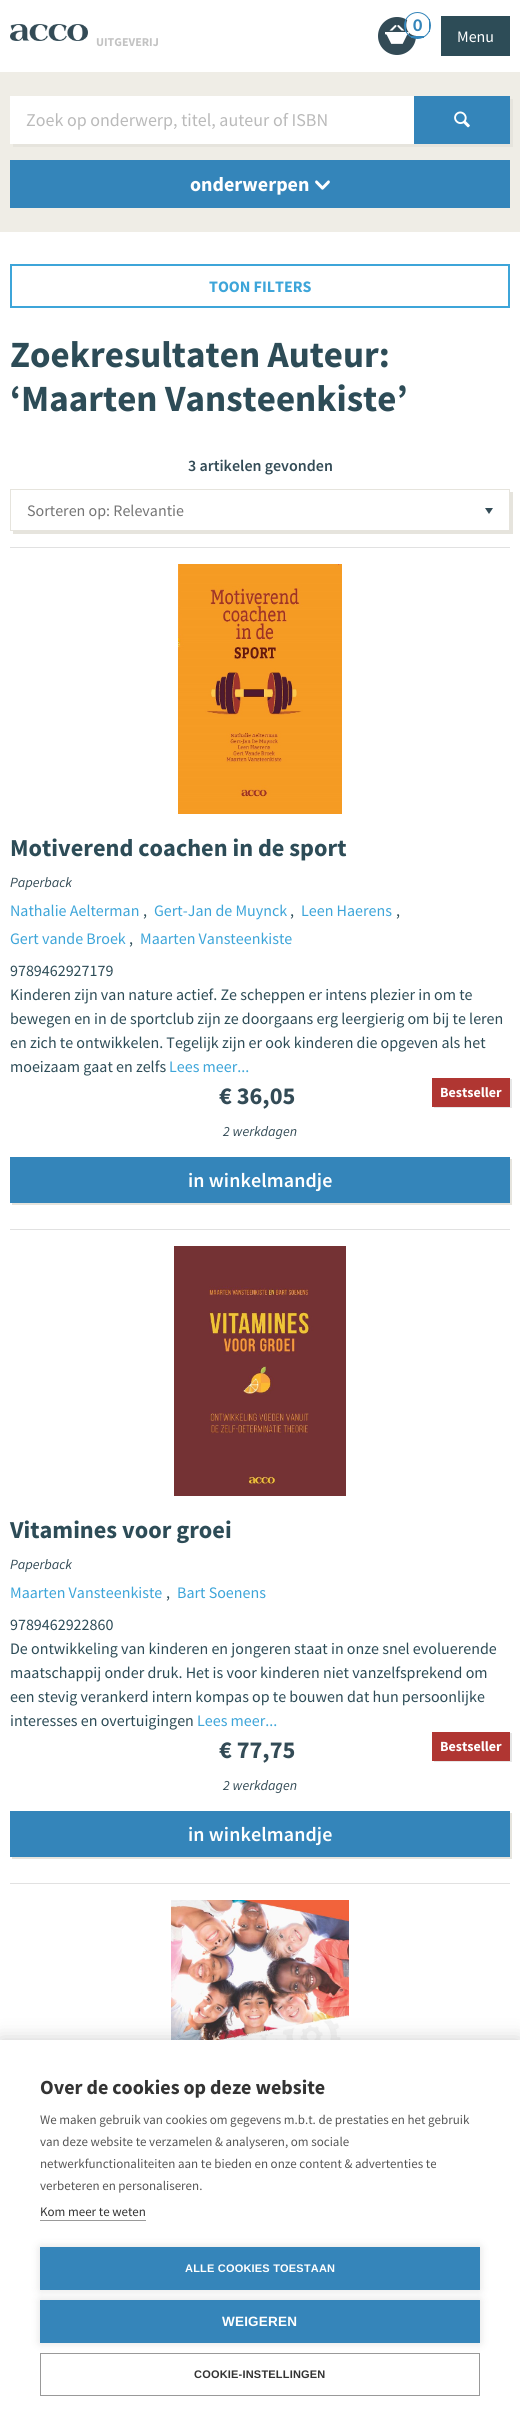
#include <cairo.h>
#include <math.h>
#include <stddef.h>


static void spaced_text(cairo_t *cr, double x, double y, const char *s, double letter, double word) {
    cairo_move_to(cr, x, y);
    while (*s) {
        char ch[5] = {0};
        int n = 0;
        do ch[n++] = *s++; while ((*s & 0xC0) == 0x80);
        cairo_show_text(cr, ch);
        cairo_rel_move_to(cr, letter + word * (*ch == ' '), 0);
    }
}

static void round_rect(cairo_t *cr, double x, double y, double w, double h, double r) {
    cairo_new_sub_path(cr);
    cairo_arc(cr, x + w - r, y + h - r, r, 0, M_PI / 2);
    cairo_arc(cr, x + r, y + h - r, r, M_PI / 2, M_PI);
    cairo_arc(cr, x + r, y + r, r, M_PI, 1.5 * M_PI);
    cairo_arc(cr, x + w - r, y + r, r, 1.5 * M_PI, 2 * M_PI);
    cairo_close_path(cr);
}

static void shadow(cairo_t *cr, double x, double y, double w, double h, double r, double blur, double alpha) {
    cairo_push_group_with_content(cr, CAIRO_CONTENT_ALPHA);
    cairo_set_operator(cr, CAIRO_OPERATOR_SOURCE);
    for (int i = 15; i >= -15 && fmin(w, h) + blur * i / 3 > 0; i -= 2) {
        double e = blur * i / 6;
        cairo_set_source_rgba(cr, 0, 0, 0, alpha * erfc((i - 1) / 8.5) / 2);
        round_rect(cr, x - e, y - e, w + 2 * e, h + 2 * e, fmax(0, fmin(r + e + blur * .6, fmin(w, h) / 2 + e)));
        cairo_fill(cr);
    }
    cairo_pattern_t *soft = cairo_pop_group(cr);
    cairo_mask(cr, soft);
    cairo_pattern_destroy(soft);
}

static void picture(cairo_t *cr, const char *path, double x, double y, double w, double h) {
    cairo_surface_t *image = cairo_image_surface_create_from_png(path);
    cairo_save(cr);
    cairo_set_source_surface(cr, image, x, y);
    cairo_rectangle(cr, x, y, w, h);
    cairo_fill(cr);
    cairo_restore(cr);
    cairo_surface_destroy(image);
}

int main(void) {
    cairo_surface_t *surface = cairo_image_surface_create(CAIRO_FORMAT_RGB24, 520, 2421);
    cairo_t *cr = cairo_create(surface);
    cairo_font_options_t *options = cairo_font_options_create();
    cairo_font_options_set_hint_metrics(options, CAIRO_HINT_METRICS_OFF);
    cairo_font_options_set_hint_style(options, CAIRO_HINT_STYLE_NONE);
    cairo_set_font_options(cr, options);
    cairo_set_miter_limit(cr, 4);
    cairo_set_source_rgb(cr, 1, 1, 1);
    cairo_paint(cr);
    picture(cr, "img1.png", 10, 24, 78, 17);
    cairo_select_font_face(cr, "Source Sans Pro", CAIRO_FONT_SLANT_NORMAL, CAIRO_FONT_WEIGHT_BOLD);
    cairo_set_font_size(cr, 12);
    cairo_set_source_rgb(cr, 0.765, 0.765, 0.765);
    cairo_move_to(cr, 96, 46);
    cairo_show_text(cr, "UITGEVERIJ");
    cairo_set_source_rgb(cr, 0.2, 0.294, 0.337);
    cairo_new_path(cr);
    cairo_arc(cr, 397, 36, 19, 0, 2 * M_PI);
    cairo_fill(cr);
    picture(cr, "img2.png", 385, 25, 24, 19);
    cairo_set_source_rgb(cr, 1, 1, 1);
    cairo_new_path(cr);
    cairo_move_to(cr, 417.5, 13);
    cairo_curve_to(cr, 431.5, 13, 433.5, 36, 417.5, 36);
    cairo_curve_to(cr, 401.5, 36, 403.5, 13, 417.5, 13);
    cairo_close_path(cr);
    cairo_fill(cr);
    cairo_arc(cr, 417.5, 25.5, 13, 0, 2 * M_PI);
    cairo_set_source_rgb(cr, 0.204, 0.522, 0.729);
    cairo_set_line_width(cr, 1);
    cairo_stroke(cr);
    cairo_rectangle(cr, 429, 19, 1, 13);
    cairo_fill(cr);
    cairo_rectangle(cr, 411, 36, 13, 2);
    cairo_fill(cr);
    cairo_rectangle(cr, 405, 19, 1, 13);
    cairo_fill(cr);
    cairo_select_font_face(cr, "Lato Black", CAIRO_FONT_SLANT_NORMAL, CAIRO_FONT_WEIGHT_NORMAL);
    cairo_set_font_size(cr, 16);
    cairo_move_to(cr, 413, 31);
    cairo_show_text(cr, "0");
    cairo_set_source_rgb(cr, 0.176, 0.298, 0.341);
    cairo_rectangle(cr, 441, 16, 69, 40);
    cairo_fill(cr);
    cairo_select_font_face(cr, "Source Sans Pro", CAIRO_FONT_SLANT_NORMAL, CAIRO_FONT_WEIGHT_NORMAL);
    cairo_set_source_rgb(cr, 1, 1, 1);
    cairo_move_to(cr, 457, 42);
    cairo_show_text(cr, "Menu");
    cairo_set_source_rgb(cr, 0.937, 0.929, 0.902);
    cairo_rectangle(cr, 0, 72, 520, 160);
    cairo_fill(cr);
    cairo_set_source_rgb(cr, 0.902, 0.894, 0.867);
    cairo_new_path(cr);
    cairo_move_to(cr, 13, 144);
    cairo_line_to(cr, 13, 147);
    cairo_line_to(cr, 513, 147);
    cairo_line_to(cr, 513, 99);
    cairo_line_to(cr, 510, 99);
    cairo_line_to(cr, 510, 144);
    cairo_close_path(cr);
    cairo_fill(cr);
    cairo_set_source_rgb(cr, 1, 1, 1);
    cairo_rectangle(cr, 10, 96, 404, 48);
    cairo_fill(cr);
    cairo_set_font_size(cr, 18);
    cairo_set_source_rgb(cr, 0.729, 0.729, 0.729);
    cairo_move_to(cr, 26, 126);
    cairo_show_text(cr, "Zoek op onderwerp, titel, auteur of ISBN");
    cairo_set_source_rgb(cr, 0.204, 0.522, 0.729);
    cairo_rectangle(cr, 414, 96, 96, 48);
    cairo_fill(cr);
    picture(cr, "img3.png", 454, 111, 16, 17);
    cairo_rectangle(cr, 10, 160, 500, 48);
    cairo_fill(cr);
    cairo_select_font_face(cr, "Source Sans Pro", CAIRO_FONT_SLANT_NORMAL, CAIRO_FONT_WEIGHT_BOLD);
    cairo_set_font_size(cr, 20);
    cairo_set_source_rgb(cr, 1, 1, 1);
    cairo_move_to(cr, 190, 191);
    cairo_show_text(cr, "onderwerpen");
    picture(cr, "img4.png", 315, 180, 15, 10);
    cairo_rectangle(cr, 11, 265, 498, 42);
    cairo_set_source_rgb(cr, 0.239, 0.647, 0.851);
    cairo_set_line_width(cr, 2);
    cairo_stroke(cr);
    cairo_set_font_size(cr, 16);
    cairo_move_to(cr, 209, 292);
    cairo_show_text(cr, "TOON FILTERS");
    cairo_set_font_size(cr, 37);
    cairo_set_source_rgb(cr, 0.176, 0.298, 0.341);
    cairo_move_to(cr, 10, 367);
    cairo_show_text(cr, "Zoekresultaten Auteur:");
    cairo_move_to(cr, 10, 411);
    cairo_show_text(cr, "‘Maarten Vansteenkiste’");
    cairo_select_font_face(cr, "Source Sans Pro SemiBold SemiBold", CAIRO_FONT_SLANT_NORMAL, CAIRO_FONT_WEIGHT_NORMAL);
    cairo_set_font_size(cr, 16);
    cairo_set_source_rgb(cr, 0.2, 0.294, 0.337);
    cairo_move_to(cr, 188, 471);
    cairo_show_text(cr, "3 artikelen gevonden");
    cairo_set_source_rgb(cr, 0.902, 0.894, 0.867);
    cairo_new_path(cr);
    cairo_move_to(cr, 13, 531);
    cairo_line_to(cr, 13, 534);
    cairo_line_to(cr, 513, 534);
    cairo_line_to(cr, 513, 492);
    cairo_line_to(cr, 510, 492);
    cairo_line_to(cr, 510, 531);
    cairo_close_path(cr);
    cairo_fill(cr);
    cairo_rectangle(cr, 10.5, 489.5, 499, 41);
    cairo_set_line_width(cr, 1);
    cairo_stroke(cr);
    cairo_select_font_face(cr, "Source Sans Pro", CAIRO_FONT_SLANT_NORMAL, CAIRO_FONT_WEIGHT_NORMAL);
    cairo_set_source_rgb(cr, 0.459, 0.459, 0.459);
    cairo_move_to(cr, 27, 516);
    cairo_show_text(cr, "Sorteren op: Relevantie");
    cairo_set_source_rgb(cr, 0.2, 0.294, 0.337);
    cairo_new_path(cr);
    cairo_move_to(cr, 485, 508);
    cairo_line_to(cr, 493, 508);
    cairo_line_to(cr, 489, 514);
    cairo_close_path(cr);
    cairo_fill(cr);
    cairo_set_source_rgb(cr, 0.882, 0.882, 0.882);
    cairo_rectangle(cr, 10, 547, 500, 1);
    cairo_fill(cr);
    cairo_rectangle(cr, 10, 1229, 500, 1);
    cairo_fill(cr);
    picture(cr, "img5.png", 178, 564, 164, 250);
    cairo_select_font_face(cr, "Source Sans Pro", CAIRO_FONT_SLANT_NORMAL, CAIRO_FONT_WEIGHT_BOLD);
    cairo_set_font_size(cr, 24.3);
    cairo_set_source_rgb(cr, 0.176, 0.298, 0.341);
    cairo_move_to(cr, 10, 856);
    cairo_show_text(cr, "Motiverend coachen in de sport");
    cairo_select_font_face(cr, "Source Sans Pro", CAIRO_FONT_SLANT_ITALIC, CAIRO_FONT_WEIGHT_NORMAL);
    cairo_set_font_size(cr, 14);
    cairo_set_source_rgb(cr, 0.2, 0.294, 0.337);
    cairo_move_to(cr, 10, 887);
    cairo_show_text(cr, "Paperback");
    cairo_select_font_face(cr, "Source Sans Pro", CAIRO_FONT_SLANT_NORMAL, CAIRO_FONT_WEIGHT_NORMAL);
    cairo_set_font_size(cr, 16);
    cairo_set_source_rgb(cr, 0.239, 0.647, 0.851);
    cairo_move_to(cr, 10, 916);
    cairo_show_text(cr, "Nathalie Aelterman");
    cairo_set_source_rgb(cr, 0.176, 0.298, 0.341);
    cairo_move_to(cr, 143, 916);
    cairo_show_text(cr, ",");
    cairo_set_source_rgb(cr, 0.239, 0.647, 0.851);
    cairo_move_to(cr, 154, 916);
    cairo_show_text(cr, "Gert-Jan de Muynck");
    cairo_set_source_rgb(cr, 0.176, 0.298, 0.341);
    cairo_move_to(cr, 290, 916);
    cairo_show_text(cr, ",");
    cairo_set_source_rgb(cr, 0.239, 0.647, 0.851);
    cairo_move_to(cr, 301, 916);
    cairo_show_text(cr, "Leen Haerens");
    cairo_set_source_rgb(cr, 0.176, 0.298, 0.341);
    cairo_move_to(cr, 396, 916);
    cairo_show_text(cr, ",");
    cairo_set_source_rgb(cr, 0.239, 0.647, 0.851);
    cairo_move_to(cr, 10, 944);
    cairo_show_text(cr, "Gert vande Broek");
    cairo_set_source_rgb(cr, 0.176, 0.298, 0.341);
    cairo_move_to(cr, 129, 944);
    cairo_show_text(cr, ",");
    cairo_set_source_rgb(cr, 0.239, 0.647, 0.851);
    cairo_move_to(cr, 140, 944);
    cairo_show_text(cr, "Maarten Vansteenkiste");
    cairo_set_source_rgb(cr, 0.176, 0.298, 0.341);
    cairo_move_to(cr, 10, 976);
    cairo_show_text(cr, "9789462927179");
    cairo_move_to(cr, 10, 1000);
    cairo_show_text(cr, "Kinderen zijn van nature actief. Ze scheppen er intens plezier in om te");
    cairo_move_to(cr, 10, 1024);
    cairo_show_text(cr, "bewegen en in de sportclub zijn ze doorgaans erg leergierig om bij te leren");
    cairo_move_to(cr, 10, 1048);
    cairo_show_text(cr, "en zich te ontwikkelen. Tegelijk zijn er ook kinderen die opgeven als het");
    cairo_move_to(cr, 10, 1072);
    cairo_show_text(cr, "moeizaam gaat en zelfs");
    cairo_set_source_rgb(cr, 0.239, 0.647, 0.851);
    cairo_move_to(cr, 169, 1072);
    cairo_show_text(cr, "Lees meer...");
    cairo_select_font_face(cr, "Source Sans Pro", CAIRO_FONT_SLANT_NORMAL, CAIRO_FONT_WEIGHT_BOLD);
    cairo_set_font_size(cr, 24.3);
    cairo_set_source_rgb(cr, 0.2, 0.294, 0.337);
    cairo_move_to(cr, 219, 1104);
    cairo_show_text(cr, "€ 36,05");
    cairo_set_source_rgb(cr, 0.902, 0.902, 0.902);
    cairo_new_path(cr);
    cairo_move_to(cr, 434, 1107);
    cairo_line_to(cr, 434, 1108);
    cairo_line_to(cr, 512, 1108);
    cairo_line_to(cr, 512, 1079);
    cairo_line_to(cr, 510, 1079);
    cairo_line_to(cr, 510, 1107);
    cairo_close_path(cr);
    cairo_fill(cr);
    cairo_set_source_rgb(cr, 0.69, 0.212, 0.196);
    cairo_rectangle(cr, 432, 1078, 78, 29);
    cairo_fill(cr);
    cairo_set_font_size(cr, 14);
    cairo_set_source_rgb(cr, 1, 1, 1);
    cairo_move_to(cr, 440, 1097);
    cairo_show_text(cr, "Bestseller");
    cairo_select_font_face(cr, "Source Sans Pro", CAIRO_FONT_SLANT_ITALIC, CAIRO_FONT_WEIGHT_NORMAL);
    cairo_set_source_rgb(cr, 0.2, 0.294, 0.337);
    cairo_move_to(cr, 223, 1136);
    cairo_show_text(cr, "2 werkdagen");
    cairo_set_source_rgb(cr, 0.902, 0.894, 0.867);
    cairo_new_path(cr);
    cairo_move_to(cr, 12, 1203);
    cairo_line_to(cr, 12, 1205);
    cairo_line_to(cr, 512, 1205);
    cairo_line_to(cr, 512, 1159);
    cairo_line_to(cr, 510, 1159);
    cairo_line_to(cr, 510, 1203);
    cairo_close_path(cr);
    cairo_fill(cr);
    cairo_set_source_rgb(cr, 0.204, 0.522, 0.729);
    cairo_rectangle(cr, 10, 1157, 500, 46);
    cairo_fill(cr);
    cairo_select_font_face(cr, "Source Sans Pro SemiBold SemiBold", CAIRO_FONT_SLANT_NORMAL, CAIRO_FONT_WEIGHT_NORMAL);
    cairo_set_font_size(cr, 20);
    cairo_set_source_rgb(cr, 1, 1, 1);
    spaced_text(cr, 188, 1187, "in winkelmandje", 0.1, 0);
    cairo_set_source_rgb(cr, 0.882, 0.882, 0.882);
    cairo_rectangle(cr, 10, 1883, 500, 1);
    cairo_fill(cr);
    picture(cr, "img6.png", 174, 1246, 172, 250);
    cairo_select_font_face(cr, "Source Sans Pro", CAIRO_FONT_SLANT_NORMAL, CAIRO_FONT_WEIGHT_BOLD);
    cairo_set_font_size(cr, 24.3);
    cairo_set_source_rgb(cr, 0.176, 0.298, 0.341);
    cairo_move_to(cr, 10, 1538);
    cairo_show_text(cr, "Vitamines voor groei");
    cairo_select_font_face(cr, "Source Sans Pro", CAIRO_FONT_SLANT_ITALIC, CAIRO_FONT_WEIGHT_NORMAL);
    cairo_set_font_size(cr, 14);
    cairo_set_source_rgb(cr, 0.2, 0.294, 0.337);
    cairo_move_to(cr, 10, 1569);
    cairo_show_text(cr, "Paperback");
    cairo_select_font_face(cr, "Source Sans Pro", CAIRO_FONT_SLANT_NORMAL, CAIRO_FONT_WEIGHT_NORMAL);
    cairo_set_font_size(cr, 16);
    cairo_set_source_rgb(cr, 0.239, 0.647, 0.851);
    cairo_move_to(cr, 10, 1598);
    cairo_show_text(cr, "Maarten Vansteenkiste");
    cairo_set_source_rgb(cr, 0.176, 0.298, 0.341);
    cairo_move_to(cr, 166, 1598);
    cairo_show_text(cr, ",");
    cairo_set_source_rgb(cr, 0.239, 0.647, 0.851);
    cairo_move_to(cr, 177, 1598);
    cairo_show_text(cr, "Bart Soenens");
    cairo_set_source_rgb(cr, 0.176, 0.298, 0.341);
    cairo_move_to(cr, 10, 1630);
    cairo_show_text(cr, "9789462922860");
    cairo_move_to(cr, 10, 1654);
    cairo_show_text(cr, "De ontwikkeling van kinderen en jongeren staat in onze snel evoluerende");
    cairo_move_to(cr, 10, 1678);
    cairo_show_text(cr, "maatschappij onder druk. Het is voor kinderen niet vanzelfsprekend om");
    cairo_move_to(cr, 10, 1702);
    cairo_show_text(cr, "een stevig verankerd intern kompas op te bouwen dat hun persoonlijke");
    cairo_move_to(cr, 10, 1726);
    cairo_show_text(cr, "interesses en overtuigingen");
    cairo_set_source_rgb(cr, 0.239, 0.647, 0.851);
    cairo_move_to(cr, 197, 1726);
    cairo_show_text(cr, "Lees meer...");
    cairo_select_font_face(cr, "Source Sans Pro", CAIRO_FONT_SLANT_NORMAL, CAIRO_FONT_WEIGHT_BOLD);
    cairo_set_font_size(cr, 24.3);
    cairo_set_source_rgb(cr, 0.2, 0.294, 0.337);
    cairo_move_to(cr, 219, 1758);
    cairo_show_text(cr, "€ 77,75");
    cairo_set_source_rgb(cr, 0.902, 0.902, 0.902);
    cairo_new_path(cr);
    cairo_move_to(cr, 434, 1761);
    cairo_line_to(cr, 434, 1762);
    cairo_line_to(cr, 512, 1762);
    cairo_line_to(cr, 512, 1733);
    cairo_line_to(cr, 510, 1733);
    cairo_line_to(cr, 510, 1761);
    cairo_close_path(cr);
    cairo_fill(cr);
    cairo_set_source_rgb(cr, 0.69, 0.212, 0.196);
    cairo_rectangle(cr, 432, 1732, 78, 29);
    cairo_fill(cr);
    cairo_set_font_size(cr, 14);
    cairo_set_source_rgb(cr, 1, 1, 1);
    cairo_move_to(cr, 440, 1751);
    cairo_show_text(cr, "Bestseller");
    cairo_select_font_face(cr, "Source Sans Pro", CAIRO_FONT_SLANT_ITALIC, CAIRO_FONT_WEIGHT_NORMAL);
    cairo_set_source_rgb(cr, 0.2, 0.294, 0.337);
    cairo_move_to(cr, 223, 1790);
    cairo_show_text(cr, "2 werkdagen");
    cairo_set_source_rgb(cr, 0.902, 0.894, 0.867);
    cairo_new_path(cr);
    cairo_move_to(cr, 12, 1857);
    cairo_line_to(cr, 12, 1859);
    cairo_line_to(cr, 512, 1859);
    cairo_line_to(cr, 512, 1813);
    cairo_line_to(cr, 510, 1813);
    cairo_line_to(cr, 510, 1857);
    cairo_close_path(cr);
    cairo_fill(cr);
    cairo_set_source_rgb(cr, 0.204, 0.522, 0.729);
    cairo_rectangle(cr, 10, 1811, 500, 46);
    cairo_fill(cr);
    cairo_select_font_face(cr, "Source Sans Pro SemiBold SemiBold", CAIRO_FONT_SLANT_NORMAL, CAIRO_FONT_WEIGHT_NORMAL);
    cairo_set_font_size(cr, 20);
    cairo_set_source_rgb(cr, 1, 1, 1);
    spaced_text(cr, 188, 1841, "in winkelmandje", 0.1, 0);
    picture(cr, "img7.png", 171, 1900, 178, 140);
    cairo_set_source_rgb(cr, 0, 0, 0);
    shadow(cr, 0, 2040, 520, 381, 0, 10, 0.2);
    cairo_set_source_rgb(cr, 1, 1, 1);
    cairo_rectangle(cr, 0, 2040, 520, 381);
    cairo_fill(cr);
    cairo_select_font_face(cr, "Source Sans Pro", CAIRO_FONT_SLANT_NORMAL, CAIRO_FONT_WEIGHT_BOLD);
    cairo_set_source_rgb(cr, 0.2, 0.2, 0.2);
    cairo_move_to(cr, 40, 2094);
    cairo_show_text(cr, "Over de cookies op deze website");
    cairo_select_font_face(cr, "Source Sans Pro", CAIRO_FONT_SLANT_NORMAL, CAIRO_FONT_WEIGHT_NORMAL);
    cairo_set_font_size(cr, 13);
    cairo_set_source_rgb(cr, 0.333, 0.333, 0.333);
    cairo_move_to(cr, 40, 2124);
    cairo_show_text(cr, "We maken gebruik van cookies om gegevens m.b.t. de prestaties en het gebruik");
    cairo_move_to(cr, 40, 2146);
    cairo_show_text(cr, "van deze website te verzamelen & analyseren, om sociale");
    cairo_move_to(cr, 40, 2168);
    cairo_show_text(cr, "netwerkfunctionaliteiten aan te bieden en onze content & advertenties te");
    cairo_move_to(cr, 40, 2190);
    cairo_show_text(cr, "verbeteren en personaliseren.");
    cairo_set_source_rgb(cr, 0.2, 0.2, 0.2);
    cairo_move_to(cr, 40, 2216);
    cairo_show_text(cr, "Kom meer te weten");
    cairo_set_source_rgb(cr, 0.6, 0.6, 0.6);
    cairo_rectangle(cr, 40, 2220, 106, 1);
    cairo_fill(cr);
    cairo_set_source_rgb(cr, 0, 0, 0);
    shadow(cr, 40, 2247, 440, 43, 0, 5, 0.12);
    cairo_set_source_rgb(cr, 0.208, 0.522, 0.729);
    cairo_rectangle(cr, 40, 2247, 440, 43);
    cairo_fill(cr);
    cairo_select_font_face(cr, "Liberation Sans", CAIRO_FONT_SLANT_NORMAL, CAIRO_FONT_WEIGHT_BOLD);
    cairo_set_font_size(cr, 11);
    cairo_set_source_rgb(cr, 1, 1, 1);
    spaced_text(cr, 185, 2272, "ALLE COOKIES TOESTAAN", 0.2, 0);
    cairo_set_source_rgb(cr, 0, 0, 0);
    shadow(cr, 40, 2300, 440, 43, 0, 5, 0.12);
    cairo_set_source_rgb(cr, 0.208, 0.522, 0.729);
    cairo_rectangle(cr, 40, 2300, 440, 43);
    cairo_fill(cr);
    cairo_set_font_size(cr, 13.5);
    cairo_set_source_rgb(cr, 1, 1, 1);
    spaced_text(cr, 222, 2326, "WEIGEREN", 0.2, 0);
    cairo_rectangle(cr, 40.5, 2353.5, 439, 42);
    cairo_set_source_rgb(cr, 0.6, 0.6, 0.6);
    cairo_stroke(cr);
    cairo_set_font_size(cr, 11);
    cairo_set_source_rgb(cr, 0.2, 0.2, 0.2);
    spaced_text(cr, 194, 2378, "COOKIE-INSTELLINGEN", 0.2, 0);
    cairo_surface_write_to_png(surface, "page.png");
    cairo_font_options_destroy(options);
    cairo_destroy(cr);
    cairo_surface_destroy(surface);
    return 0;
}
